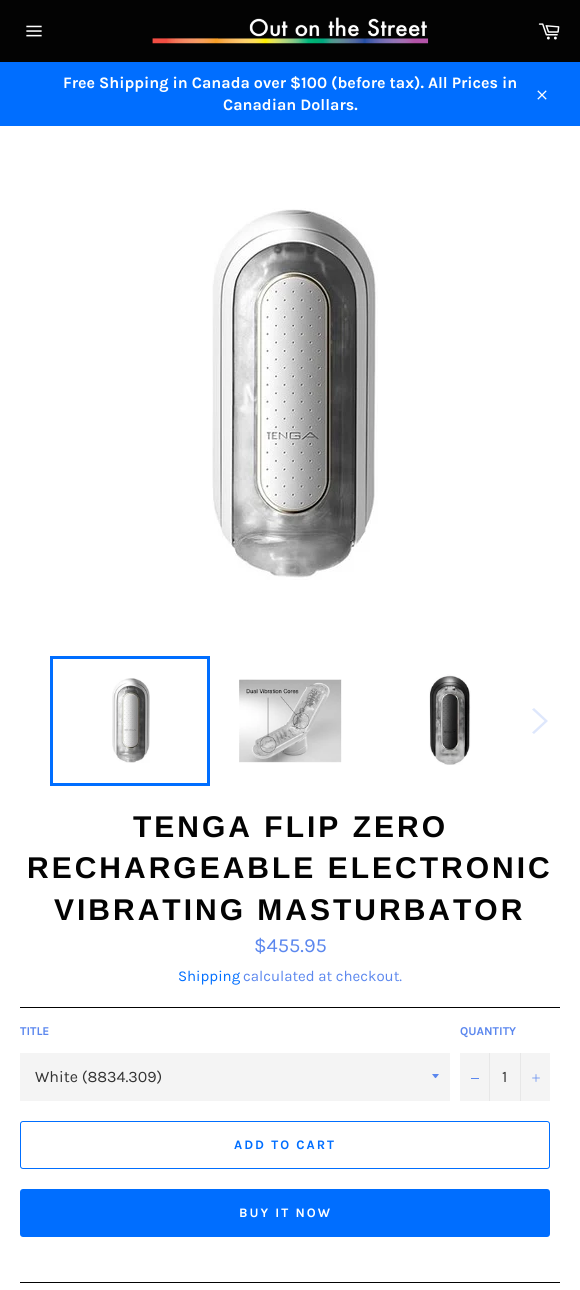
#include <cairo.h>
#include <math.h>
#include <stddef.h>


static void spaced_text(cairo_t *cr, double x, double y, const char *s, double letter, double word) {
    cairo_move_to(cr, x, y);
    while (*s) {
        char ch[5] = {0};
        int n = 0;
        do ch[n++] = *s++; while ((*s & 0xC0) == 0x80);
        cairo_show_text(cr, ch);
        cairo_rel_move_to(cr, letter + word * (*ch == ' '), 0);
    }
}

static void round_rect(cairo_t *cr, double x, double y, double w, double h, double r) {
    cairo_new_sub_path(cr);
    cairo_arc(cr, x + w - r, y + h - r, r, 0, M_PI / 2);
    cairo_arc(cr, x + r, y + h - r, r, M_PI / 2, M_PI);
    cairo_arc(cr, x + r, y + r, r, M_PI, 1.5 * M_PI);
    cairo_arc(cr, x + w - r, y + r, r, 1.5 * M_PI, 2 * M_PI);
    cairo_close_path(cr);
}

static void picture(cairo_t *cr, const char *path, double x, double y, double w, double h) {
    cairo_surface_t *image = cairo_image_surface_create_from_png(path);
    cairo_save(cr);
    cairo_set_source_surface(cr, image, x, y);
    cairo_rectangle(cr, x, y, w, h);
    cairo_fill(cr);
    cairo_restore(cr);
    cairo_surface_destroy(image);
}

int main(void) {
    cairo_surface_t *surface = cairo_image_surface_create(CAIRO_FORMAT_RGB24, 580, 1290);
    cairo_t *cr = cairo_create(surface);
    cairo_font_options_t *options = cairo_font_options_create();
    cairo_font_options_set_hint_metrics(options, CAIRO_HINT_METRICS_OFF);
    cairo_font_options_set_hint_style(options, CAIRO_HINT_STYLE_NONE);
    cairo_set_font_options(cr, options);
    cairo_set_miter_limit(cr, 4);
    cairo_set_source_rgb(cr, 0.012, 0.012, 0.012);
    cairo_paint(cr);
    picture(cr, "img1.png", 26, 25, 16, 12);
    picture(cr, "img2.png", 152, 17, 277, 27);
    picture(cr, "img3.png", 538, 23, 22, 17);
    cairo_set_source_rgb(cr, 0, 0.431, 1);
    cairo_rectangle(cr, 0, 62, 580, 64);
    cairo_fill(cr);
    cairo_select_font_face(cr, "Karla", CAIRO_FONT_SLANT_NORMAL, CAIRO_FONT_WEIGHT_BOLD);
    cairo_set_font_size(cr, 16);
    cairo_set_source_rgb(cr, 1, 1, 1);
    cairo_move_to(cr, 63, 88);
    cairo_show_text(cr, "Free Shipping in Canada over $100 (before tax). All Prices in");
    cairo_move_to(cr, 223, 110);
    cairo_show_text(cr, "Canadian Dollars.");
    picture(cr, "img4.png", 537, 90, 10, 10);
    cairo_rectangle(cr, 0, 126, 580, 1164);
    cairo_fill(cr);
    picture(cr, "img5.png", 212, 208, 166, 372);
    picture(cr, "img6.png", 112, 678, 38, 85);
    cairo_rectangle(cr, 51.5, 657.5, 157, 127);
    cairo_set_source_rgb(cr, 0, 0.431, 1);
    cairo_set_line_width(cr, 3);
    cairo_stroke(cr);
    picture(cr, "img7.png", 239, 679, 103, 84);
    picture(cr, "img8.png", 429, 674, 42, 91);
    cairo_set_source_rgb(cr, 0.871, 0.906, 0.988);
    cairo_new_path(cr);
    cairo_move_to(cr, 532, 709.5);
    cairo_line_to(cr, 534, 708);
    cairo_line_to(cr, 548, 721);
    cairo_line_to(cr, 534, 734);
    cairo_line_to(cr, 532, 732.5);
    cairo_line_to(cr, 544.5, 721);
    cairo_close_path(cr);
    cairo_fill(cr);
    cairo_select_font_face(cr, "Arimo", CAIRO_FONT_SLANT_NORMAL, CAIRO_FONT_WEIGHT_BOLD);
    cairo_set_font_size(cr, 30);
    cairo_set_source_rgb(cr, 0.012, 0.012, 0.012);
    spaced_text(cr, 133, 837, "TENGA FLIP ZERO", 3, 0);
    spaced_text(cr, 27, 878, "RECHARGEABLE ELECTRONIC", 3, 0);
    spaced_text(cr, 54, 920, "VIBRATING MASTURBATOR", 3, 0);
    cairo_select_font_face(cr, "Karla", CAIRO_FONT_SLANT_NORMAL, CAIRO_FONT_WEIGHT_NORMAL);
    cairo_set_font_size(cr, 20);
    cairo_set_source_rgb(cr, 0.357, 0.529, 0.933);
    cairo_move_to(cr, 254, 952);
    cairo_show_text(cr, "$455.95");
    cairo_set_font_size(cr, 15);
    cairo_set_source_rgb(cr, 0, 0.431, 1);
    cairo_move_to(cr, 178, 981);
    cairo_show_text(cr, "Shipping");
    cairo_set_source_rgb(cr, 0.357, 0.529, 0.933);
    cairo_move_to(cr, 243, 981);
    cairo_show_text(cr, "calculated at checkout.");
    cairo_set_source_rgb(cr, 0.012, 0.012, 0.012);
    cairo_rectangle(cr, 20, 1007, 540, 1);
    cairo_fill(cr);
    cairo_select_font_face(cr, "Karla", CAIRO_FONT_SLANT_NORMAL, CAIRO_FONT_WEIGHT_BOLD);
    cairo_set_font_size(cr, 12);
    cairo_set_source_rgb(cr, 0.357, 0.529, 0.933);
    cairo_move_to(cr, 20, 1035);
    cairo_show_text(cr, "TITLE");
    cairo_set_source_rgb(cr, 0.957, 0.957, 0.957);
    cairo_rectangle(cr, 20, 1053, 430, 48);
    cairo_fill(cr);
    cairo_set_source_rgb(cr, 0.357, 0.529, 0.933);
    cairo_new_path(cr);
    cairo_move_to(cr, 432, 1074);
    cairo_curve_to(cr, 436.5, 1079.5, 434.5, 1079.5, 439, 1074);
    cairo_close_path(cr);
    cairo_fill(cr);
    cairo_select_font_face(cr, "Karla", CAIRO_FONT_SLANT_NORMAL, CAIRO_FONT_WEIGHT_NORMAL);
    cairo_set_font_size(cr, 16);
    cairo_set_source_rgb(cr, 0.2, 0.2, 0.2);
    cairo_move_to(cr, 35, 1082);
    cairo_show_text(cr, "White (8834.309)");
    cairo_select_font_face(cr, "Karla", CAIRO_FONT_SLANT_NORMAL, CAIRO_FONT_WEIGHT_BOLD);
    cairo_set_font_size(cr, 12);
    cairo_set_source_rgb(cr, 0.357, 0.529, 0.933);
    cairo_move_to(cr, 460, 1035);
    cairo_show_text(cr, "QUANTITY");
    cairo_set_source_rgb(cr, 0.957, 0.957, 0.957);
    cairo_rectangle(cr, 460, 1053, 90, 48);
    cairo_fill(cr);
    cairo_set_source_rgb(cr, 0.906, 0.906, 0.906);
    cairo_rectangle(cr, 489, 1053, 1, 48);
    cairo_fill(cr);
    cairo_set_source_rgb(cr, 0.357, 0.529, 0.933);
    cairo_rectangle(cr, 471, 1078, 8, 1);
    cairo_fill(cr);
    cairo_select_font_face(cr, "Karla", CAIRO_FONT_SLANT_NORMAL, CAIRO_FONT_WEIGHT_NORMAL);
    cairo_set_font_size(cr, 16);
    cairo_set_source_rgb(cr, 0.2, 0.2, 0.2);
    cairo_move_to(cr, 502, 1082);
    cairo_show_text(cr, "1");
    cairo_set_source_rgb(cr, 0.906, 0.906, 0.906);
    cairo_rectangle(cr, 520, 1053, 1, 48);
    cairo_fill(cr);
    picture(cr, "img9.png", 532, 1074, 8, 8);
    round_rect(cr, 20.5, 1121.5, 529, 47, 2.5);
    cairo_set_source_rgb(cr, 0, 0.431, 1);
    cairo_set_line_width(cr, 1);
    cairo_stroke(cr);
    cairo_select_font_face(cr, "Karla", CAIRO_FONT_SLANT_NORMAL, CAIRO_FONT_WEIGHT_BOLD);
    cairo_set_font_size(cr, 13);
    spaced_text(cr, 234, 1149, "ADD TO CART", 2, 0);
    round_rect(cr, 20, 1189, 530, 48, 3);
    cairo_fill(cr);
    cairo_set_source_rgb(cr, 1, 1, 1);
    spaced_text(cr, 239, 1217, "BUY IT NOW", 2, 0);
    cairo_set_source_rgb(cr, 0.012, 0.012, 0.012);
    cairo_rectangle(cr, 20, 1282, 540, 1);
    cairo_fill(cr);
    cairo_surface_write_to_png(surface, "page.png");
    cairo_font_options_destroy(options);
    cairo_destroy(cr);
    cairo_surface_destroy(surface);
    return 0;
}
